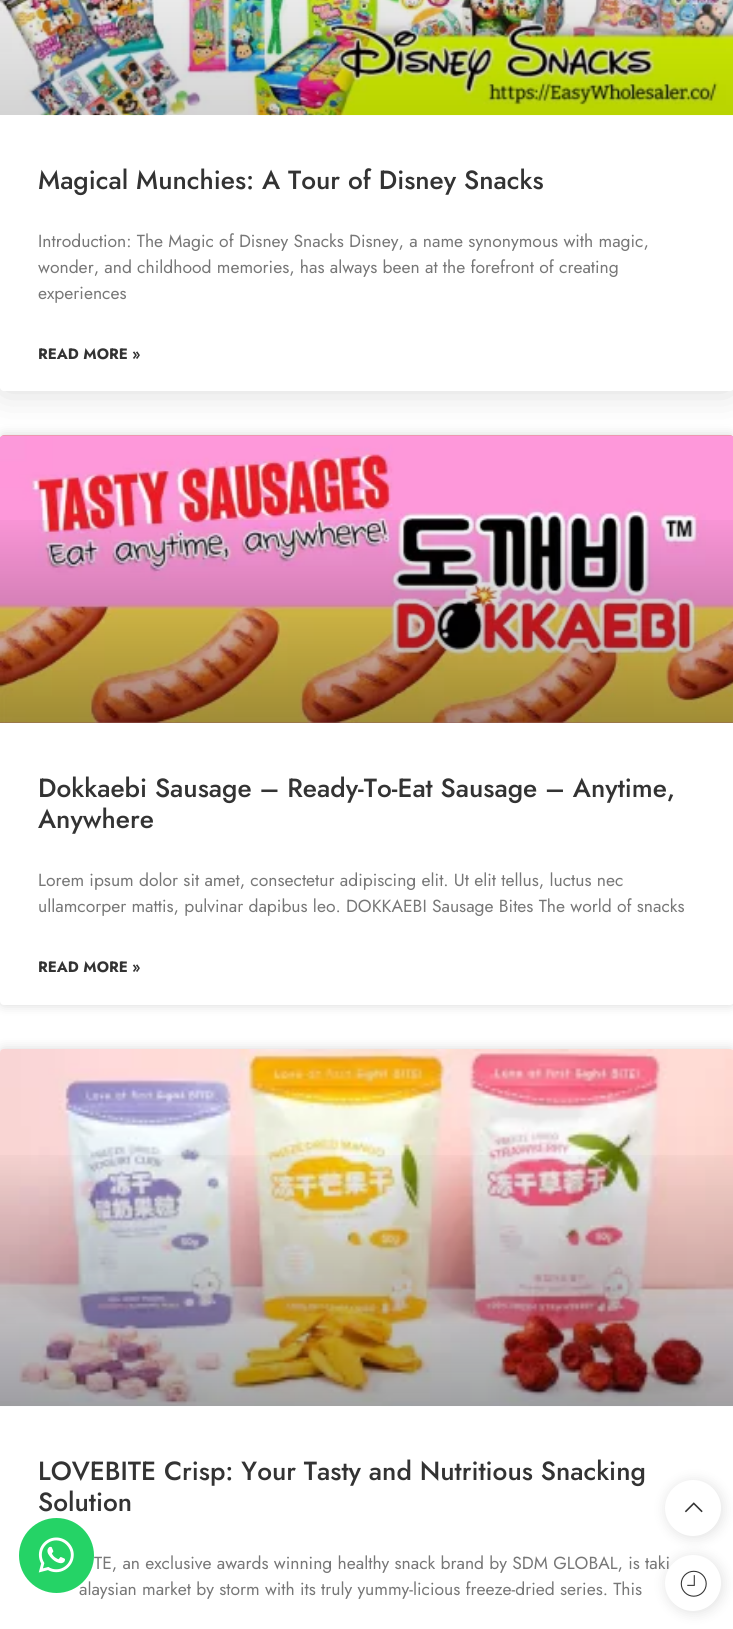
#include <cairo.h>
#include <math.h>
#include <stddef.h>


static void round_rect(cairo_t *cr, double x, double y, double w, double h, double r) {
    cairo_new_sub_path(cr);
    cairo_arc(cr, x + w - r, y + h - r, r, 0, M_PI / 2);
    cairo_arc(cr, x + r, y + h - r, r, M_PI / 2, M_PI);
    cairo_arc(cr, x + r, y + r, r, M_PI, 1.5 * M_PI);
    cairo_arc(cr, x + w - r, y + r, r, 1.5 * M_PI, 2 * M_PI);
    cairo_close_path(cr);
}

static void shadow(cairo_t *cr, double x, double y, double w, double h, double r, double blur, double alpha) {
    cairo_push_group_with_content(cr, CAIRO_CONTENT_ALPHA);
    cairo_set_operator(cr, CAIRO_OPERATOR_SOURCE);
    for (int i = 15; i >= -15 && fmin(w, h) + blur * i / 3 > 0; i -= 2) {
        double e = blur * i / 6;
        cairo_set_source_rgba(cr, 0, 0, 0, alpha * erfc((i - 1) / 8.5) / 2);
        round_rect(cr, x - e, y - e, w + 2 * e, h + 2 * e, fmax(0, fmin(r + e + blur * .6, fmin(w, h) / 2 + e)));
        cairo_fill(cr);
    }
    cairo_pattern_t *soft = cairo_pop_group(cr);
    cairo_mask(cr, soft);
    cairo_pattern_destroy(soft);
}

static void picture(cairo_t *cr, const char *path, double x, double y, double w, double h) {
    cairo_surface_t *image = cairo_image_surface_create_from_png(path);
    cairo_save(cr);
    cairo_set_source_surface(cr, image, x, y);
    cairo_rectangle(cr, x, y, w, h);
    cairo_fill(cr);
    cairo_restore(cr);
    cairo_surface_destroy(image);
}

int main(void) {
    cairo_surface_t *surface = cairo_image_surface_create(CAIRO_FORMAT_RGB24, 733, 1629);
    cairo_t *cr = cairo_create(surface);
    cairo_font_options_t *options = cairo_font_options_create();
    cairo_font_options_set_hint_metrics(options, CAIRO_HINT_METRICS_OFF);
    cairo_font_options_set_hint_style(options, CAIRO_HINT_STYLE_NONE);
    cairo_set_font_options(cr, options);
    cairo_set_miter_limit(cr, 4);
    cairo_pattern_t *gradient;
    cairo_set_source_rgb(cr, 1, 1, 1);
    cairo_paint(cr);
    cairo_save(cr);
    cairo_set_fill_rule(cr, CAIRO_FILL_RULE_EVEN_ODD);
    cairo_new_path(cr);
    cairo_move_to(cr, 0, 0);
    cairo_line_to(cr, 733, 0);
    cairo_line_to(cr, 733, 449);
    cairo_line_to(cr, 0, 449);
    cairo_close_path(cr);
    cairo_move_to(cr, 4, -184);
    cairo_line_to(cr, 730, -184);
    cairo_curve_to(cr, 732, -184, 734, -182, 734, -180);
    cairo_line_to(cr, 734, 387);
    cairo_curve_to(cr, 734, 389, 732, 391, 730, 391);
    cairo_line_to(cr, 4, 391);
    cairo_curve_to(cr, 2, 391, 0, 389, 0, 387);
    cairo_line_to(cr, 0, -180);
    cairo_curve_to(cr, 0, -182, 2, -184, 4, -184);
    cairo_close_path(cr);
    cairo_clip(cr);
    cairo_set_source_rgb(cr, 0, 0, 0);
    shadow(cr, 0, -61, 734, 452, 4, 19, 0.15);
    cairo_restore(cr);
    picture(cr, "img1.png", 0, 0, 733, 116);
    cairo_select_font_face(cr, "Jost Medium", CAIRO_FONT_SLANT_NORMAL, CAIRO_FONT_WEIGHT_NORMAL);
    cairo_set_font_size(cr, 26.25);
    cairo_set_source_rgb(cr, 0.2, 0.2, 0.2);
    cairo_move_to(cr, 38, 189);
    cairo_show_text(cr, "Magical Munchies: A Tour of Disney Snacks");
    cairo_select_font_face(cr, "Jost", CAIRO_FONT_SLANT_NORMAL, CAIRO_FONT_WEIGHT_NORMAL);
    cairo_set_font_size(cr, 17.5);
    cairo_set_source_rgb(cr, 0.467, 0.467, 0.467);
    cairo_move_to(cr, 38, 247);
    cairo_show_text(cr, "Introduction: The Magic of Disney Snacks Disney, a name synonymous with magic,");
    cairo_move_to(cr, 38, 273);
    cairo_show_text(cr, "wonder, and childhood memories, has always been at the forefront of creating");
    cairo_move_to(cr, 38, 299);
    cairo_show_text(cr, "experiences");
    cairo_select_font_face(cr, "Jost", CAIRO_FONT_SLANT_NORMAL, CAIRO_FONT_WEIGHT_BOLD);
    cairo_set_font_size(cr, 15);
    cairo_set_source_rgb(cr, 0.2, 0.2, 0.2);
    cairo_move_to(cr, 38, 359);
    cairo_show_text(cr, "READ MORE »");
    cairo_set_source_rgb(cr, 0, 0, 0);
    shadow(cr, 0, 435, 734, 570, 4, 6, 0.15);
    cairo_set_source_rgb(cr, 1, 1, 1);
    round_rect(cr, 0, 435, 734, 570, 4);
    cairo_fill(cr);
    cairo_set_source_rgb(cr, 0.89, 0.58, 0.569);
    cairo_new_path(cr);
    cairo_move_to(cr, 4, 435);
    cairo_line_to(cr, 730, 435);
    cairo_curve_to(cr, 732, 435, 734, 437, 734, 439);
    cairo_line_to(cr, 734, 723);
    cairo_line_to(cr, 0, 723);
    cairo_line_to(cr, 0, 439);
    cairo_curve_to(cr, 0, 437, 2, 435, 4, 435);
    cairo_close_path(cr);
    cairo_fill(cr);
    picture(cr, "img2.png", 0, 435, 733, 288);
    gradient = cairo_pattern_create_linear(367, 723, 367, 435);
    cairo_pattern_add_color_stop_rgba(gradient, 0, 0, 0, 0, 0.35);
    cairo_pattern_add_color_stop_rgba(gradient, 0.75, 0, 0, 0, 0);
    cairo_set_source(cr, gradient);
    cairo_pattern_destroy(gradient);
    cairo_rectangle(cr, 0, 520, 733, 203);
    cairo_fill(cr);
    cairo_select_font_face(cr, "Jost Medium", CAIRO_FONT_SLANT_NORMAL, CAIRO_FONT_WEIGHT_NORMAL);
    cairo_set_font_size(cr, 26.25);
    cairo_set_source_rgb(cr, 0.2, 0.2, 0.2);
    cairo_move_to(cr, 38, 797);
    cairo_show_text(cr, "Dokkaebi Sausage – Ready-To-Eat Sausage – Anytime,");
    cairo_move_to(cr, 38, 828);
    cairo_show_text(cr, "Anywhere");
    cairo_select_font_face(cr, "Jost", CAIRO_FONT_SLANT_NORMAL, CAIRO_FONT_WEIGHT_NORMAL);
    cairo_set_font_size(cr, 17.5);
    cairo_set_source_rgb(cr, 0.467, 0.467, 0.467);
    cairo_move_to(cr, 38, 886);
    cairo_show_text(cr, "Lorem ipsum dolor sit amet, consectetur adipiscing elit. Ut elit tellus, luctus nec");
    cairo_move_to(cr, 38, 912);
    cairo_show_text(cr, "ullamcorper mattis, pulvinar dapibus leo. DOKKAEBI Sausage Bites The world of snacks");
    cairo_select_font_face(cr, "Jost", CAIRO_FONT_SLANT_NORMAL, CAIRO_FONT_WEIGHT_BOLD);
    cairo_set_font_size(cr, 15);
    cairo_set_source_rgb(cr, 0.2, 0.2, 0.2);
    cairo_move_to(cr, 38, 972);
    cairo_show_text(cr, "READ MORE »");
    cairo_save(cr);
    cairo_set_fill_rule(cr, CAIRO_FILL_RULE_EVEN_ODD);
    cairo_new_path(cr);
    cairo_move_to(cr, 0, 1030);
    cairo_line_to(cr, 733, 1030);
    cairo_line_to(cr, 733, 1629);
    cairo_line_to(cr, 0, 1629);
    cairo_close_path(cr);
    cairo_move_to(cr, 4, 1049);
    cairo_line_to(cr, 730, 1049);
    cairo_curve_to(cr, 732, 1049, 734, 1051, 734, 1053);
    cairo_line_to(cr, 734, 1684);
    cairo_curve_to(cr, 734, 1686, 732, 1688, 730, 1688);
    cairo_line_to(cr, 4, 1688);
    cairo_curve_to(cr, 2, 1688, 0, 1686, 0, 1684);
    cairo_line_to(cr, 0, 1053);
    cairo_curve_to(cr, 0, 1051, 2, 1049, 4, 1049);
    cairo_close_path(cr);
    cairo_clip(cr);
    cairo_set_source_rgb(cr, 0, 0, 0);
    shadow(cr, 0, 1049, 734, 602, 4, 6, 0.15);
    cairo_restore(cr);
    picture(cr, "img3.png", 0, 1049, 733, 358);
    gradient = cairo_pattern_create_linear(367, 1406, 367, 1049);
    cairo_pattern_add_color_stop_rgba(gradient, 0, 0, 0, 0, 0.35);
    cairo_pattern_add_color_stop_rgba(gradient, 0.75, 0, 0, 0, 0);
    cairo_set_source(cr, gradient);
    cairo_pattern_destroy(gradient);
    cairo_rectangle(cr, 0, 1155, 733, 251);
    cairo_fill(cr);
    cairo_select_font_face(cr, "Jost Medium", CAIRO_FONT_SLANT_NORMAL, CAIRO_FONT_WEIGHT_NORMAL);
    cairo_set_font_size(cr, 26.25);
    cairo_set_source_rgb(cr, 0.2, 0.2, 0.2);
    cairo_move_to(cr, 38, 1480);
    cairo_show_text(cr, "LOVEBITE Crisp: Your Tasty and Nutritious Snacking");
    cairo_move_to(cr, 38, 1511);
    cairo_show_text(cr, "Solution");
    cairo_select_font_face(cr, "Jost", CAIRO_FONT_SLANT_NORMAL, CAIRO_FONT_WEIGHT_NORMAL);
    cairo_set_font_size(cr, 17.5);
    cairo_set_source_rgb(cr, 0.467, 0.467, 0.467);
    cairo_move_to(cr, 94, 1569);
    cairo_show_text(cr, "TE, an exclusive awards winning healthy snack brand by SDM GLOBAL, is taki");
    cairo_move_to(cr, 79, 1595);
    cairo_show_text(cr, "alaysian market by storm with its truly yummy-licious freeze-dried series. This");
    cairo_set_source_rgb(cr, 0, 0, 0);
    shadow(cr, 665, 1480, 59, 59, 29.5, 6, 0.1);
    cairo_set_source_rgb(cr, 1, 1, 1);
    cairo_arc(cr, 693, 1508, 28, 0, 2 * M_PI);
    cairo_fill(cr);
    picture(cr, "img4.png", 684, 1502, 19, 11);
    cairo_set_source_rgb(cr, 0, 0, 0);
    shadow(cr, 665, 1555, 59, 59, 29.5, 6, 0.1);
    cairo_set_source_rgb(cr, 1, 1, 1);
    cairo_arc(cr, 693, 1583, 28, 0, 2 * M_PI);
    cairo_fill(cr);
    picture(cr, "img5.png", 680, 1570, 27, 27);
    cairo_set_source_rgb(cr, 0.145, 0.827, 0.4);
    cairo_arc(cr, 56.5, 1555.5, 37.5, 0, 2 * M_PI);
    cairo_fill(cr);
    picture(cr, "img6.png", 38, 1537, 36, 36);
    cairo_surface_write_to_png(surface, "page.png");
    cairo_font_options_destroy(options);
    cairo_destroy(cr);
    cairo_surface_destroy(surface);
    return 0;
}
